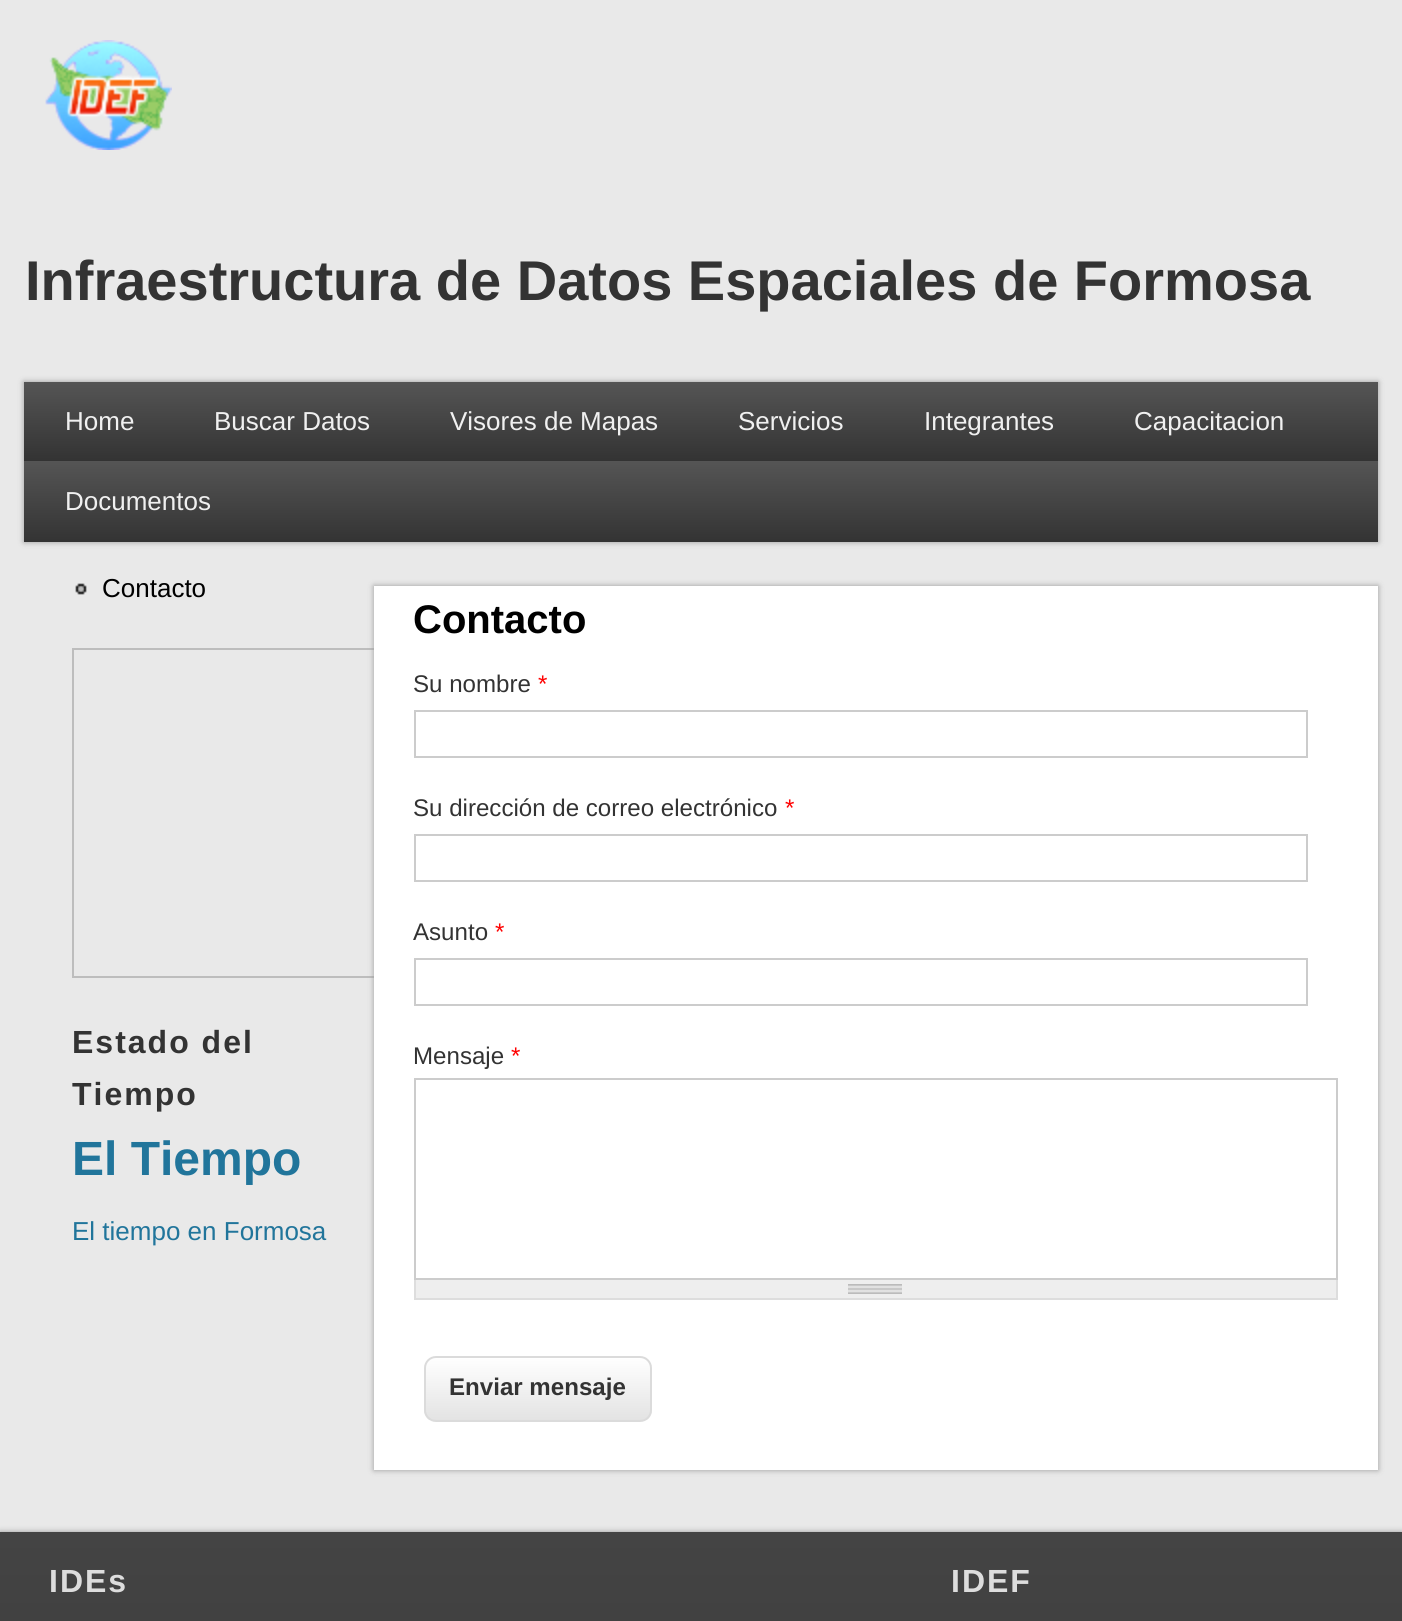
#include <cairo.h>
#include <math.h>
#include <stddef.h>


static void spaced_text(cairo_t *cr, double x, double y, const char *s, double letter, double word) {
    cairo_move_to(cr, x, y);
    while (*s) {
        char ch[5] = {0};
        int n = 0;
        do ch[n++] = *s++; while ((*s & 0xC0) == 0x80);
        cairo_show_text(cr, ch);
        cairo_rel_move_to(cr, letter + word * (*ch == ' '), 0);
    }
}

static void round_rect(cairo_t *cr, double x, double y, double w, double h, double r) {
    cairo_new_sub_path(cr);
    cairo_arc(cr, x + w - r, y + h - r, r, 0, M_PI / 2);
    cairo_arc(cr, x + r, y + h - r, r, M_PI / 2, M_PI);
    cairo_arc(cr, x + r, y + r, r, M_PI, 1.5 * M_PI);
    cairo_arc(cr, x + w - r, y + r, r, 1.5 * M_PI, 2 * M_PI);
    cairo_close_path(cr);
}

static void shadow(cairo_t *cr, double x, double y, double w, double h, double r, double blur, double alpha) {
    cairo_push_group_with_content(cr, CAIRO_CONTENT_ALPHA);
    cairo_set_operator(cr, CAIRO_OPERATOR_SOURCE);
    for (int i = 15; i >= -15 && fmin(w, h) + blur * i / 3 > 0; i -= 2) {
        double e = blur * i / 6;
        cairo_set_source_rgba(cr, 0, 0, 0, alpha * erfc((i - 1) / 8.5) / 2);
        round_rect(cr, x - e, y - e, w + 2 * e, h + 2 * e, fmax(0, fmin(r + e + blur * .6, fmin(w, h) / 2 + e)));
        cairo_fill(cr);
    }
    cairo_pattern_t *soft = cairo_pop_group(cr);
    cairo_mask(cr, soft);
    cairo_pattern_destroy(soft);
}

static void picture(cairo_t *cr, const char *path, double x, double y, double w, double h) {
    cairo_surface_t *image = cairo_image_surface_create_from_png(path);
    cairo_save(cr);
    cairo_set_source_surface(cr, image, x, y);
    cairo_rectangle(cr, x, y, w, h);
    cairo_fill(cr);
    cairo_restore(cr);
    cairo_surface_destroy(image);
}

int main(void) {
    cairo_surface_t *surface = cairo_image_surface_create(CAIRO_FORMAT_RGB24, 1402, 1621);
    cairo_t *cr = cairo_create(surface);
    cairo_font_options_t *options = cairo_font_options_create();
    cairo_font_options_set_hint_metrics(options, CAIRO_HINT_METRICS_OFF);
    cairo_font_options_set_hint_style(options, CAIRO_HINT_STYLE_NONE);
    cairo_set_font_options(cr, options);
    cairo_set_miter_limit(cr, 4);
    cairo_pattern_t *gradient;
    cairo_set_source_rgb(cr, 0.914, 0.914, 0.914);
    cairo_paint(cr);
    picture(cr, "img1.png", 45, 40, 127, 110);
    cairo_select_font_face(cr, "Liberation Sans", CAIRO_FONT_SLANT_NORMAL, CAIRO_FONT_WEIGHT_BOLD);
    cairo_set_font_size(cr, 56);
    cairo_set_source_rgb(cr, 0.2, 0.2, 0.2);
    cairo_move_to(cr, 25, 300);
    cairo_show_text(cr, "Infraestructura de Datos Espaciales de Formosa");
    cairo_set_source_rgb(cr, 0.6, 0.6, 0.6);
    shadow(cr, 24, 382, 1354, 160, 0, 3, 1);
    gradient = cairo_pattern_create_linear(701, 382, 701, 622);
    cairo_pattern_add_color_stop_rgba(gradient, 0, 0.333, 0.333, 0.333, 1);
    cairo_pattern_add_color_stop_rgba(gradient, 0.33, 0.2, 0.2, 0.2, 1);
    cairo_pattern_add_color_stop_rgba(gradient, 0.33, 0.333, 0.333, 0.333, 1);
    cairo_pattern_add_color_stop_rgba(gradient, 0.67, 0.2, 0.2, 0.2, 1);
    cairo_pattern_add_color_stop_rgba(gradient, 0.67, 0.333, 0.333, 0.333, 1);
    cairo_pattern_add_color_stop_rgba(gradient, 1, 0.2, 0.2, 0.2, 1);
    cairo_set_source(cr, gradient);
    cairo_pattern_destroy(gradient);
    cairo_rectangle(cr, 24, 382, 1354, 160);
    cairo_fill(cr);
    cairo_select_font_face(cr, "Liberation Sans", CAIRO_FONT_SLANT_NORMAL, CAIRO_FONT_WEIGHT_NORMAL);
    cairo_set_font_size(cr, 26);
    cairo_set_source_rgb(cr, 0.941, 0.941, 0.941);
    cairo_move_to(cr, 65, 430);
    cairo_show_text(cr, "Home");
    cairo_move_to(cr, 214, 430);
    cairo_show_text(cr, "Buscar Datos");
    cairo_move_to(cr, 450, 430);
    cairo_show_text(cr, "Visores de Mapas");
    cairo_move_to(cr, 738, 430);
    cairo_show_text(cr, "Servicios");
    cairo_move_to(cr, 924, 430);
    cairo_show_text(cr, "Integrantes");
    cairo_move_to(cr, 1134, 430);
    cairo_show_text(cr, "Capacitacion");
    cairo_move_to(cr, 65, 510);
    cairo_show_text(cr, "Documentos");
    picture(cr, "img2.png", 75, 583, 12, 12);
    cairo_set_source_rgb(cr, 0, 0, 0);
    cairo_move_to(cr, 102, 597);
    cairo_show_text(cr, "Contacto");
    cairo_rectangle(cr, 73, 649, 402, 328);
    cairo_set_source_rgb(cr, 0.741, 0.741, 0.741);
    cairo_stroke(cr);
    cairo_select_font_face(cr, "Liberation Sans", CAIRO_FONT_SLANT_NORMAL, CAIRO_FONT_WEIGHT_BOLD);
    cairo_set_font_size(cr, 32);
    cairo_set_source_rgb(cr, 0.2, 0.2, 0.2);
    spaced_text(cr, 72, 1053, "Estado del", 2, 0);
    spaced_text(cr, 72, 1105, "Tiempo", 2, 0);
    cairo_set_font_size(cr, 48);
    cairo_set_source_rgb(cr, 0.129, 0.459, 0.608);
    cairo_move_to(cr, 72, 1175);
    cairo_show_text(cr, "El Tiempo");
    cairo_select_font_face(cr, "Liberation Sans", CAIRO_FONT_SLANT_NORMAL, CAIRO_FONT_WEIGHT_NORMAL);
    cairo_set_font_size(cr, 26);
    cairo_move_to(cr, 72, 1240);
    cairo_show_text(cr, "El tiempo en Formosa");
    cairo_set_source_rgb(cr, 0.6, 0.6, 0.6);
    shadow(cr, 374, 586, 1004, 884, 0, 3, 1);
    cairo_set_source_rgb(cr, 1, 1, 1);
    cairo_rectangle(cr, 374, 586, 1004, 884);
    cairo_fill(cr);
    cairo_select_font_face(cr, "Liberation Sans", CAIRO_FONT_SLANT_NORMAL, CAIRO_FONT_WEIGHT_BOLD);
    cairo_set_font_size(cr, 40);
    cairo_set_source_rgb(cr, 0, 0, 0);
    cairo_move_to(cr, 413, 633);
    cairo_show_text(cr, "Contacto");
    cairo_select_font_face(cr, "Liberation Sans", CAIRO_FONT_SLANT_NORMAL, CAIRO_FONT_WEIGHT_NORMAL);
    cairo_set_font_size(cr, 24.1);
    cairo_set_source_rgb(cr, 0.2, 0.2, 0.2);
    cairo_move_to(cr, 413, 692);
    cairo_show_text(cr, "Su nombre");
    cairo_set_source_rgb(cr, 1, 0, 0);
    cairo_move_to(cr, 538, 692);
    cairo_show_text(cr, "*");
    cairo_rectangle(cr, 415, 711, 892, 46);
    cairo_set_source_rgb(cr, 0.8, 0.8, 0.8);
    cairo_stroke(cr);
    cairo_set_source_rgb(cr, 0.2, 0.2, 0.2);
    cairo_move_to(cr, 413, 816);
    cairo_show_text(cr, "Su dirección de correo electrónico");
    cairo_set_source_rgb(cr, 1, 0, 0);
    cairo_move_to(cr, 785, 816);
    cairo_show_text(cr, "*");
    cairo_rectangle(cr, 415, 835, 892, 46);
    cairo_set_source_rgb(cr, 0.8, 0.8, 0.8);
    cairo_stroke(cr);
    cairo_set_source_rgb(cr, 0.2, 0.2, 0.2);
    cairo_move_to(cr, 413, 940);
    cairo_show_text(cr, "Asunto");
    cairo_set_source_rgb(cr, 1, 0, 0);
    cairo_move_to(cr, 495, 940);
    cairo_show_text(cr, "*");
    cairo_rectangle(cr, 415, 959, 892, 46);
    cairo_set_source_rgb(cr, 0.8, 0.8, 0.8);
    cairo_stroke(cr);
    cairo_set_source_rgb(cr, 0.2, 0.2, 0.2);
    cairo_move_to(cr, 413, 1064);
    cairo_show_text(cr, "Mensaje");
    cairo_set_source_rgb(cr, 1, 0, 0);
    cairo_move_to(cr, 511, 1064);
    cairo_show_text(cr, "*");
    cairo_rectangle(cr, 415, 1079, 922, 200);
    cairo_set_source_rgb(cr, 0.8, 0.8, 0.8);
    cairo_stroke(cr);
    cairo_set_source_rgb(cr, 0.933, 0.933, 0.933);
    cairo_rectangle(cr, 416, 1280, 920, 18);
    cairo_fill(cr);
    picture(cr, "img3.png", 848, 1284, 54, 10);
    cairo_set_source_rgb(cr, 0.867, 0.867, 0.867);
    cairo_rectangle(cr, 1336, 1280, 2, 20);
    cairo_fill(cr);
    cairo_rectangle(cr, 414, 1298, 924, 2);
    cairo_fill(cr);
    cairo_rectangle(cr, 414, 1280, 2, 20);
    cairo_fill(cr);
    cairo_save(cr);
    round_rect(cr, 424, 1356, 228, 66, 12);
    cairo_clip(cr);
    gradient = cairo_pattern_create_linear(538, 1358, 538, 1420);
    cairo_pattern_add_color_stop_rgba(gradient, 0, 1, 1, 1, 1);
    cairo_pattern_add_color_stop_rgba(gradient, 1, 0.89, 0.89, 0.89, 1);
    cairo_set_source(cr, gradient);
    cairo_pattern_destroy(gradient);
    cairo_rectangle(cr, 424, 1358, 228, 62);
    cairo_fill(cr);
    cairo_restore(cr);
    round_rect(cr, 425, 1357, 226, 64, 11);
    cairo_set_source_rgb(cr, 0.859, 0.859, 0.859);
    cairo_stroke(cr);
    cairo_select_font_face(cr, "Liberation Sans", CAIRO_FONT_SLANT_NORMAL, CAIRO_FONT_WEIGHT_BOLD);
    cairo_set_source_rgb(cr, 0.2, 0.2, 0.2);
    cairo_move_to(cr, 449, 1395);
    cairo_show_text(cr, "Enviar mensaje");
    cairo_set_source_rgb(cr, 0.6, 0.6, 0.6);
    shadow(cr, 0, 1532, 1402, 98, 0, 3, 1);
    gradient = cairo_pattern_create_linear(701, 1532, 701, 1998);
    cairo_pattern_add_color_stop_rgba(gradient, 0, 0.267, 0.267, 0.267, 1);
    cairo_pattern_add_color_stop_rgba(gradient, 1, 0.2, 0.2, 0.2, 1);
    cairo_set_source(cr, gradient);
    cairo_pattern_destroy(gradient);
    cairo_rectangle(cr, 0, 1532, 1402, 89);
    cairo_fill(cr);
    cairo_set_font_size(cr, 32);
    cairo_set_source_rgb(cr, 0.867, 0.867, 0.867);
    spaced_text(cr, 49, 1592, "IDEs", 2, 0);
    spaced_text(cr, 951, 1592, "IDEF", 2, 0);
    cairo_surface_write_to_png(surface, "page.png");
    cairo_font_options_destroy(options);
    cairo_destroy(cr);
    cairo_surface_destroy(surface);
    return 0;
}
